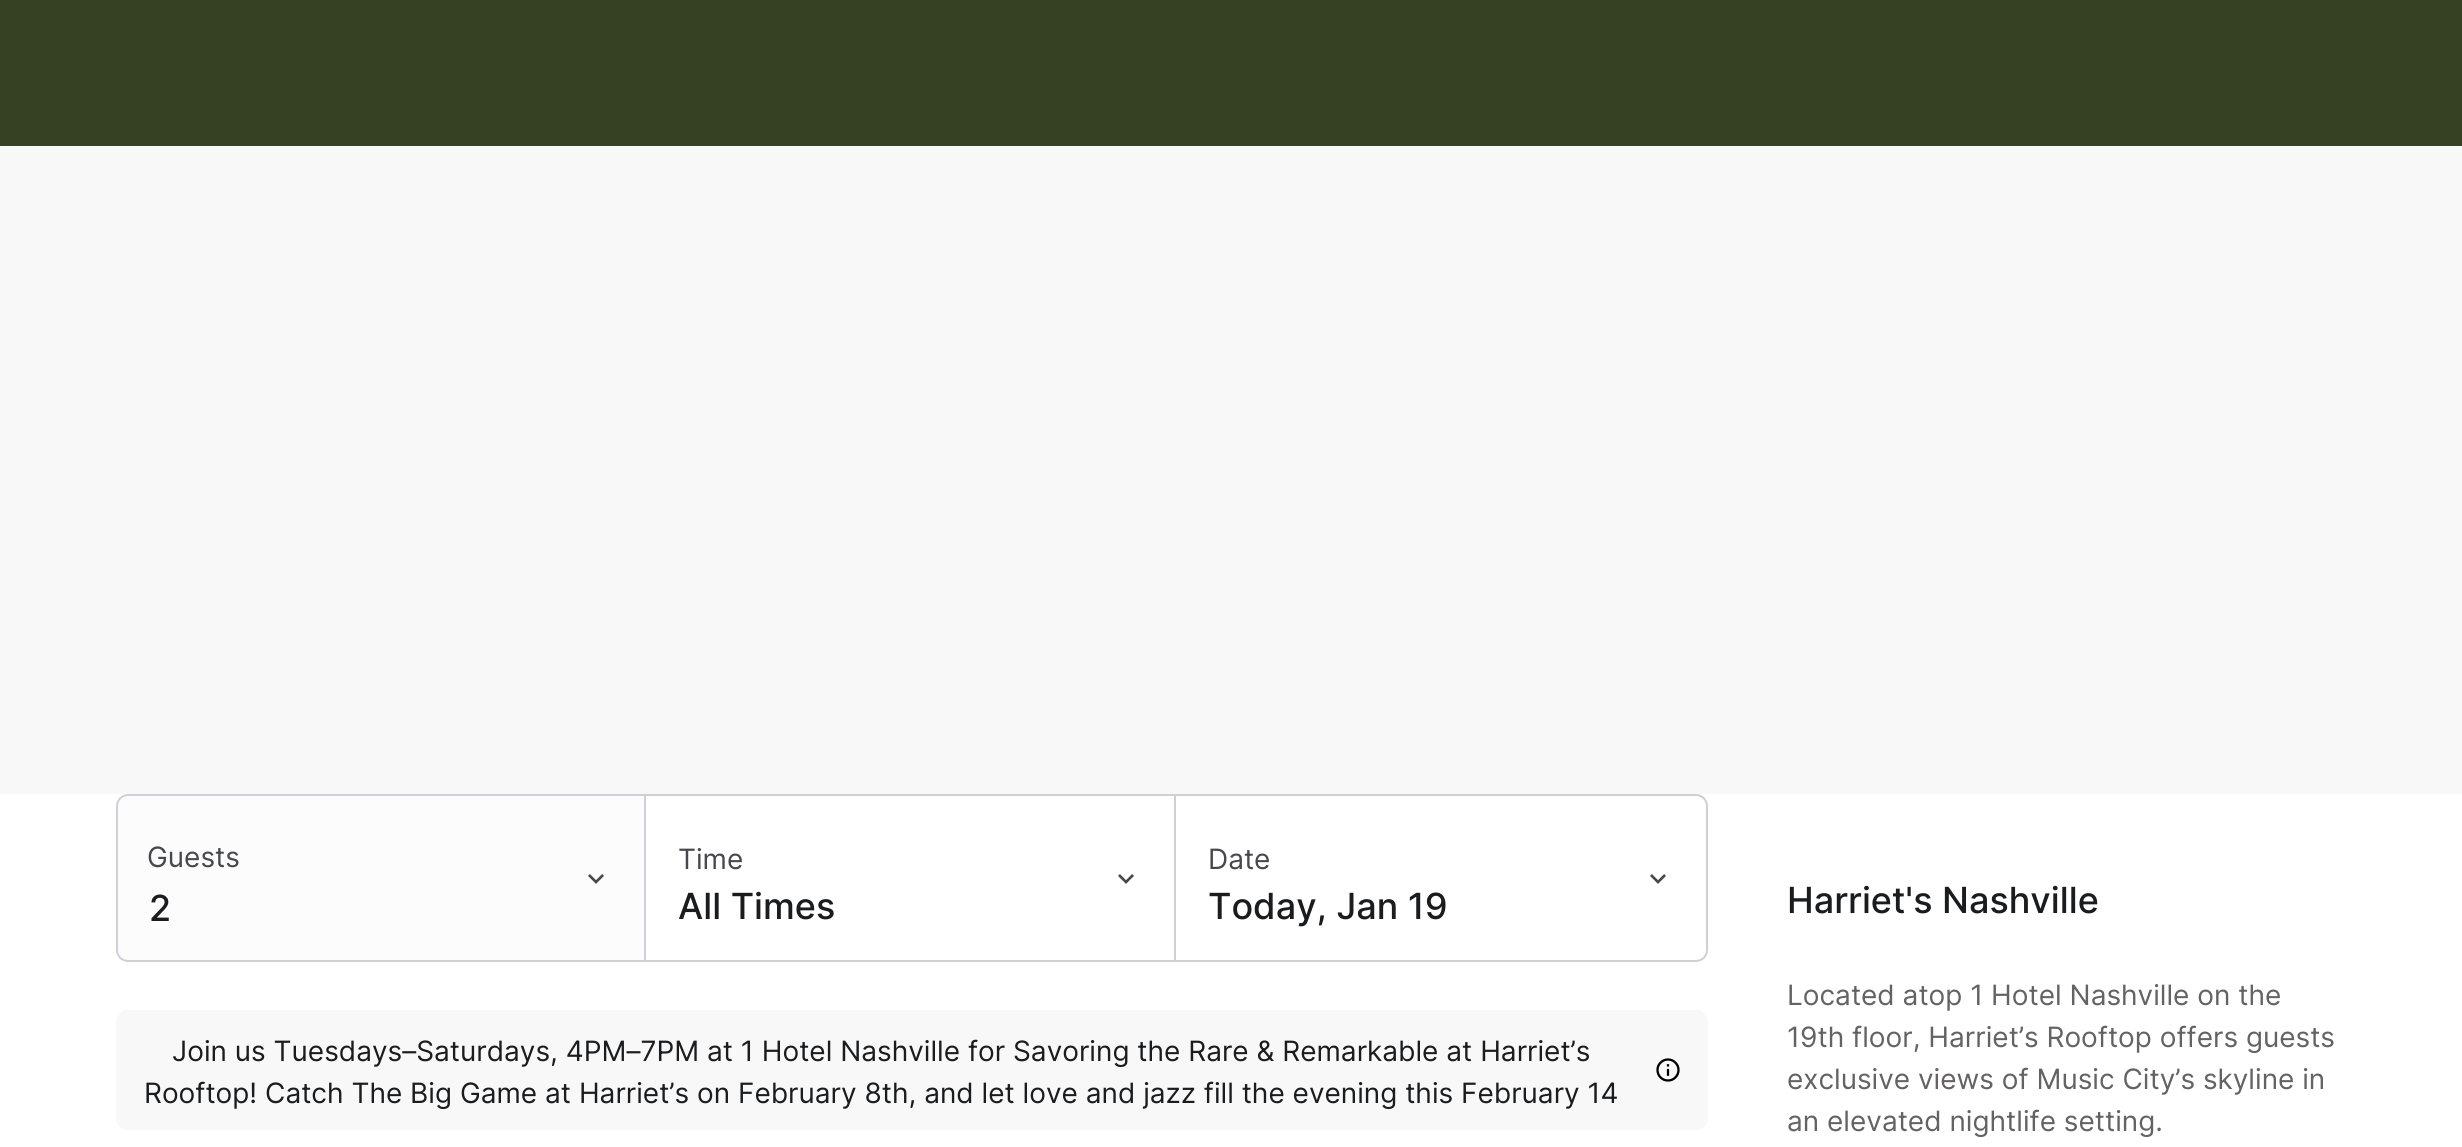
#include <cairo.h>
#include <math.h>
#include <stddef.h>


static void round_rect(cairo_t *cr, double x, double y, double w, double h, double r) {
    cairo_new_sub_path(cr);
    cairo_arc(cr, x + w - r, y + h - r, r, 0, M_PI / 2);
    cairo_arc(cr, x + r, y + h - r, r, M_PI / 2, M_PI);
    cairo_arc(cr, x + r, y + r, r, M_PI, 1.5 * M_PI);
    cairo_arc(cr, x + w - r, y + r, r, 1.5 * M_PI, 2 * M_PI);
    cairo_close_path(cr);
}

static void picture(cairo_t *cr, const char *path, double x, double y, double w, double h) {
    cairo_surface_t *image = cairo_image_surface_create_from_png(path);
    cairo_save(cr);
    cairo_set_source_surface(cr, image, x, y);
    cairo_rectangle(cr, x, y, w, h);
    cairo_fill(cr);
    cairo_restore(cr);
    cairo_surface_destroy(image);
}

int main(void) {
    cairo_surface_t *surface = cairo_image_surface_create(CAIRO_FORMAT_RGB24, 2462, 1147);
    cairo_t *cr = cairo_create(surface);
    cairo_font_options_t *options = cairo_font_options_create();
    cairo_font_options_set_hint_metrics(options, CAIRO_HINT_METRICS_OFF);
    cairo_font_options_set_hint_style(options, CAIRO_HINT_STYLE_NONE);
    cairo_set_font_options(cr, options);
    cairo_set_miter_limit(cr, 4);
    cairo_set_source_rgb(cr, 0.969, 0.969, 0.969);
    cairo_paint(cr);
    cairo_set_source_rgb(cr, 0.212, 0.251, 0.137);
    cairo_rectangle(cr, 0, 0, 2462, 146);
    cairo_fill(cr);
    cairo_set_source_rgb(cr, 1, 1, 1);
    cairo_rectangle(cr, 0, 794, 2462, 353);
    cairo_fill(cr);
    cairo_rectangle(cr, 645, 795, 530, 166);
    cairo_set_source_rgb(cr, 0.812, 0.816, 0.843);
    cairo_stroke(cr);
    cairo_set_source_rgb(cr, 0.988, 0.988, 0.992);
    cairo_new_path(cr);
    cairo_move_to(cr, 128, 795);
    cairo_line_to(cr, 645, 795);
    cairo_line_to(cr, 645, 961);
    cairo_line_to(cr, 128, 961);
    cairo_curve_to(cr, 122, 961, 117, 956, 117, 950);
    cairo_line_to(cr, 117, 806);
    cairo_curve_to(cr, 117, 800, 122, 795, 128, 795);
    cairo_close_path(cr);
    cairo_fill_preserve(cr);
    cairo_set_source_rgb(cr, 0.812, 0.816, 0.843);
    cairo_stroke(cr);
    cairo_select_font_face(cr, "Inter", CAIRO_FONT_SLANT_NORMAL, CAIRO_FONT_WEIGHT_NORMAL);
    cairo_set_font_size(cr, 28);
    cairo_set_source_rgb(cr, 0.278, 0.282, 0.298);
    cairo_move_to(cr, 147, 867);
    cairo_show_text(cr, "Guests");
    picture(cr, "img1.png", 588, 874, 16, 10);
    cairo_select_font_face(cr, "Inter Medium", CAIRO_FONT_SLANT_NORMAL, CAIRO_FONT_WEIGHT_NORMAL);
    cairo_set_font_size(cr, 36);
    cairo_set_source_rgb(cr, 0.106, 0.11, 0.118);
    cairo_move_to(cr, 149, 921);
    cairo_show_text(cr, "2");
    cairo_select_font_face(cr, "Inter", CAIRO_FONT_SLANT_NORMAL, CAIRO_FONT_WEIGHT_NORMAL);
    cairo_set_font_size(cr, 28);
    cairo_set_source_rgb(cr, 0.278, 0.282, 0.298);
    cairo_move_to(cr, 678, 869);
    cairo_show_text(cr, "Time");
    cairo_select_font_face(cr, "Inter Medium", CAIRO_FONT_SLANT_NORMAL, CAIRO_FONT_WEIGHT_NORMAL);
    cairo_set_font_size(cr, 36);
    cairo_set_source_rgb(cr, 0.106, 0.11, 0.118);
    cairo_move_to(cr, 678, 919);
    cairo_show_text(cr, "All Times");
    picture(cr, "img2.png", 1118, 874, 16, 10);
    cairo_set_source_rgb(cr, 1, 1, 1);
    cairo_new_path(cr);
    cairo_move_to(cr, 1175, 795);
    cairo_line_to(cr, 1696, 795);
    cairo_curve_to(cr, 1702, 795, 1707, 800, 1707, 806);
    cairo_line_to(cr, 1707, 950);
    cairo_curve_to(cr, 1707, 956, 1702, 961, 1696, 961);
    cairo_line_to(cr, 1175, 961);
    cairo_close_path(cr);
    cairo_fill_preserve(cr);
    cairo_set_source_rgb(cr, 0.812, 0.816, 0.843);
    cairo_stroke(cr);
    cairo_select_font_face(cr, "Inter", CAIRO_FONT_SLANT_NORMAL, CAIRO_FONT_WEIGHT_NORMAL);
    cairo_set_font_size(cr, 28);
    cairo_set_source_rgb(cr, 0.278, 0.282, 0.298);
    cairo_move_to(cr, 1208, 869);
    cairo_show_text(cr, "Date");
    cairo_select_font_face(cr, "Inter Medium", CAIRO_FONT_SLANT_NORMAL, CAIRO_FONT_WEIGHT_NORMAL);
    cairo_set_font_size(cr, 36);
    cairo_set_source_rgb(cr, 0.106, 0.11, 0.118);
    cairo_move_to(cr, 1208, 919);
    cairo_show_text(cr, "Today, Jan 19");
    picture(cr, "img2.png", 1650, 874, 16, 10);
    cairo_set_source_rgb(cr, 0.969, 0.969, 0.969);
    round_rect(cr, 116, 1010, 1592, 120, 12);
    cairo_fill(cr);
    cairo_select_font_face(cr, "Inter", CAIRO_FONT_SLANT_NORMAL, CAIRO_FONT_WEIGHT_NORMAL);
    cairo_set_font_size(cr, 28);
    cairo_set_source_rgb(cr, 0.106, 0.11, 0.118);
    cairo_move_to(cr, 172, 1061);
    cairo_show_text(cr, "Join us Tuesdays–Saturdays, 4PM–7PM at 1 Hotel Nashville for Savoring the Rare & Remarkable at Harriet’s");
    cairo_move_to(cr, 144, 1103);
    cairo_show_text(cr, "Rooftop! Catch The Big Game at Harriet’s on February 8th, and let love and jazz fill the evening this February 14");
    picture(cr, "img3.png", 1656, 1058, 24, 24);
    cairo_select_font_face(cr, "Inter Medium", CAIRO_FONT_SLANT_NORMAL, CAIRO_FONT_WEIGHT_NORMAL);
    cairo_set_font_size(cr, 36);
    cairo_move_to(cr, 1787, 913);
    cairo_show_text(cr, "Harriet's Nashville");
    cairo_select_font_face(cr, "Inter", CAIRO_FONT_SLANT_NORMAL, CAIRO_FONT_WEIGHT_NORMAL);
    cairo_set_font_size(cr, 28);
    cairo_set_source_rgb(cr, 0.392, 0.384, 0.384);
    cairo_move_to(cr, 1787, 1005);
    cairo_show_text(cr, "Located atop 1 Hotel Nashville on the");
    cairo_move_to(cr, 1787, 1047);
    cairo_show_text(cr, "19th floor, Harriet’s Rooftop offers guests");
    cairo_move_to(cr, 1787, 1089);
    cairo_show_text(cr, "exclusive views of Music City’s skyline in");
    cairo_move_to(cr, 1787, 1131);
    cairo_show_text(cr, "an elevated nightlife setting.");
    cairo_surface_write_to_png(surface, "page.png");
    cairo_font_options_destroy(options);
    cairo_destroy(cr);
    cairo_surface_destroy(surface);
    return 0;
}
